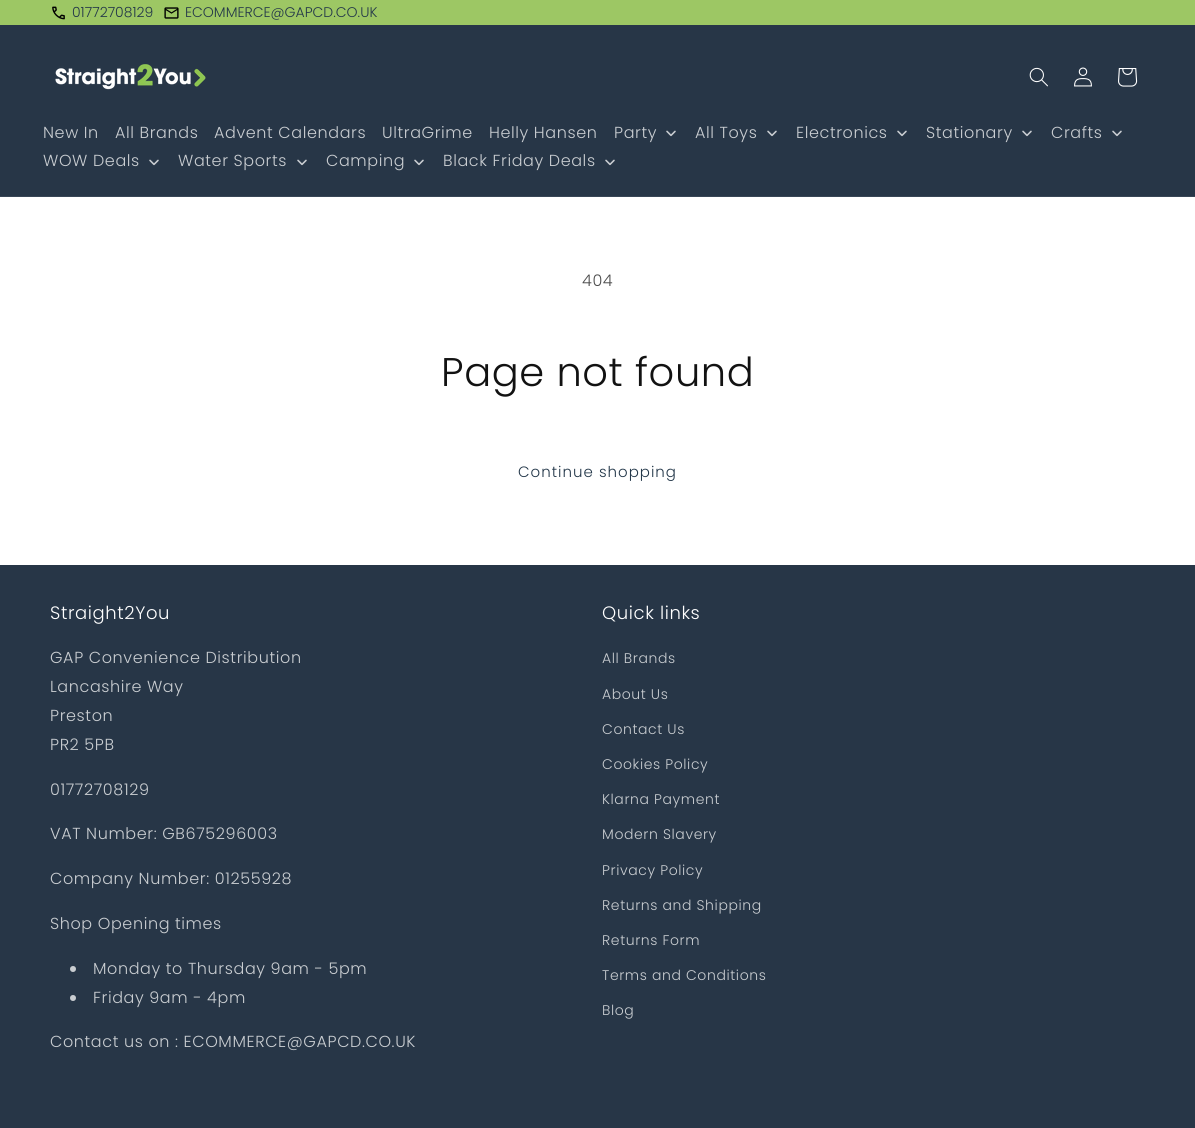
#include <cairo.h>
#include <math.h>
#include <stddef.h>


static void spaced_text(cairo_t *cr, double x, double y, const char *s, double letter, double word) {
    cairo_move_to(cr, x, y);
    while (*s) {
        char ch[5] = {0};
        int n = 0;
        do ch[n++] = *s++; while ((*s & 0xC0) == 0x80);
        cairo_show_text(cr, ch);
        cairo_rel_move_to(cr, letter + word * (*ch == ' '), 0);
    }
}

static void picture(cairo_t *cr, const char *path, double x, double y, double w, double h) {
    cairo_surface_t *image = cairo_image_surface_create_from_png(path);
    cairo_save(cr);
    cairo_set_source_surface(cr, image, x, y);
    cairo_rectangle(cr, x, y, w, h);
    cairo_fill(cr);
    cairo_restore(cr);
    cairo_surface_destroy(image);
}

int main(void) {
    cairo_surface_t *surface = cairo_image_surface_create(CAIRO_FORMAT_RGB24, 1195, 1128);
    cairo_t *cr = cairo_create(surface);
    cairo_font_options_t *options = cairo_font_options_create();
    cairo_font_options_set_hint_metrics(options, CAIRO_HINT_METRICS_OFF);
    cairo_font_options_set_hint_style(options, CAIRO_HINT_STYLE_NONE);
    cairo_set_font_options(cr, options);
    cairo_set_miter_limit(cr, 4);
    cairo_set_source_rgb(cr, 1, 1, 1);
    cairo_paint(cr);
    cairo_set_source_rgb(cr, 0.616, 0.78, 0.392);
    cairo_rectangle(cr, 0, 0, 1195, 25);
    cairo_fill(cr);
    picture(cr, "img1.png", 52, 6, 13, 14);
    cairo_select_font_face(cr, "Poppins Light", CAIRO_FONT_SLANT_NORMAL, CAIRO_FONT_WEIGHT_NORMAL);
    cairo_set_font_size(cr, 14);
    cairo_set_source_rgb(cr, 0.137, 0.216, 0.286);
    cairo_move_to(cr, 72, 17);
    cairo_show_text(cr, "01772708129");
    picture(cr, "img2.png", 164, 7, 15, 12);
    cairo_move_to(cr, 185, 17);
    cairo_show_text(cr, "ECOMMERCE@GAPCD.CO.UK");
    cairo_set_source_rgb(cr, 0.153, 0.212, 0.278);
    cairo_rectangle(cr, 0, 25, 1195, 171);
    cairo_fill(cr);
    cairo_set_source_rgb(cr, 0.22, 0.275, 0.337);
    cairo_rectangle(cr, 0, 196, 1195, 1);
    cairo_fill(cr);
    picture(cr, "img3.png", 55, 64, 151, 26);
    picture(cr, "img4.png", 1029, 67, 19, 20);
    picture(cr, "img5.png", 1074, 67, 18, 20);
    picture(cr, "img6.png", 1118, 68, 20, 19);
    cairo_set_font_size(cr, 16);
    cairo_set_source_rgb(cr, 0.788, 0.804, 0.82);
    spaced_text(cr, 43, 138, "New In", 0.6, 0);
    spaced_text(cr, 115, 138, "All Brands", 0.6, 0);
    spaced_text(cr, 214, 138, "Advent Calendars", 0.6, 0);
    spaced_text(cr, 382, 138, "UltraGrime", 0.6, 0);
    spaced_text(cr, 489, 138, "Helly Hansen", 0.6, 0);
    spaced_text(cr, 614, 138, "Party", 0.6, 0);
    picture(cr, "img7.png", 666, 130, 10, 7);
    spaced_text(cr, 695, 138, "All Toys", 0.6, 0);
    picture(cr, "img7.png", 767, 130, 10, 7);
    spaced_text(cr, 796, 138, "Electronics", 0.6, 0);
    picture(cr, "img7.png", 897, 130, 10, 7);
    spaced_text(cr, 926, 138, "Stationary", 0.6, 0);
    picture(cr, "img7.png", 1022, 130, 10, 7);
    spaced_text(cr, 1051, 138, "Crafts", 0.6, 0);
    picture(cr, "img7.png", 1112, 130, 10, 7);
    spaced_text(cr, 43, 166, "WOW Deals", 0.6, 0);
    picture(cr, "img7.png", 149, 159, 10, 7);
    spaced_text(cr, 178, 166, "Water Sports", 0.6, 0);
    picture(cr, "img7.png", 297, 159, 10, 7);
    spaced_text(cr, 326, 166, "Camping", 0.6, 0);
    picture(cr, "img7.png", 414, 159, 10, 7);
    spaced_text(cr, 443, 166, "Black Friday Deals", 0.6, 0);
    picture(cr, "img7.png", 605, 159, 10, 7);
    cairo_set_source_rgb(cr, 0.302, 0.302, 0.302);
    spaced_text(cr, 582, 286, "404", 0.6, 0);
    cairo_set_font_size(cr, 40);
    cairo_set_source_rgb(cr, 0.071, 0.071, 0.071);
    spaced_text(cr, 441, 386, "Page not found", 0.6, 0);
    cairo_set_font_size(cr, 15);
    cairo_set_source_rgb(cr, 0.137, 0.216, 0.286);
    spaced_text(cr, 518, 477, "Continue shopping", 1, 0);
    cairo_set_source_rgb(cr, 0.153, 0.212, 0.278);
    cairo_rectangle(cr, 0, 565, 1195, 563);
    cairo_fill(cr);
    cairo_set_font_size(cr, 18);
    cairo_set_source_rgb(cr, 1, 1, 1);
    spaced_text(cr, 50, 619, "Straight2You", 0.6, 0);
    cairo_set_font_size(cr, 16);
    cairo_set_source_rgb(cr, 0.788, 0.804, 0.82);
    spaced_text(cr, 50, 663, "GAP Convenience Distribution", 0.6, 0);
    spaced_text(cr, 50, 692, "Lancashire Way", 0.6, 0);
    spaced_text(cr, 50, 721, "Preston", 0.6, 0);
    spaced_text(cr, 50, 750, "PR2 5PB", 0.6, 0);
    spaced_text(cr, 50, 795, "01772708129", 0.6, 0);
    spaced_text(cr, 50, 839, "VAT Number: GB675296003", 0.6, 0);
    spaced_text(cr, 50, 884, "Company Number: 01255928", 0.6, 0);
    spaced_text(cr, 50, 929, "Shop Opening times", 0.6, 0);
    cairo_new_path(cr);
    cairo_arc(cr, 73, 969, 3, 0, 2 * M_PI);
    cairo_fill(cr);
    spaced_text(cr, 93, 974, "Monday to Thursday 9am - 5pm", 0.6, 0);
    cairo_new_path(cr);
    cairo_arc(cr, 73, 998, 3, 0, 2 * M_PI);
    cairo_fill(cr);
    spaced_text(cr, 93, 1003, "Friday 9am - 4pm", 0.6, 0);
    spaced_text(cr, 50, 1047, "Contact us on : ECOMMERCE@GAPCD.CO.UK", 0.6, 0);
    cairo_set_font_size(cr, 18);
    cairo_set_source_rgb(cr, 1, 1, 1);
    spaced_text(cr, 602, 619, "Quick links", 0.6, 0);
    cairo_set_font_size(cr, 14);
    cairo_set_source_rgb(cr, 0.788, 0.804, 0.82);
    spaced_text(cr, 602, 663, "All Brands", 0.6, 0);
    spaced_text(cr, 602, 699, "About Us", 0.6, 0);
    spaced_text(cr, 602, 734, "Contact Us", 0.6, 0);
    spaced_text(cr, 602, 769, "Cookies Policy", 0.6, 0);
    spaced_text(cr, 602, 804, "Klarna Payment", 0.6, 0);
    spaced_text(cr, 602, 839, "Modern Slavery", 0.6, 0);
    spaced_text(cr, 602, 875, "Privacy Policy", 0.6, 0);
    spaced_text(cr, 602, 910, "Returns and Shipping", 0.6, 0);
    spaced_text(cr, 602, 945, "Returns Form", 0.6, 0);
    spaced_text(cr, 602, 980, "Terms and Conditions", 0.6, 0);
    spaced_text(cr, 602, 1015, "Blog", 0.6, 0);
    cairo_surface_write_to_png(surface, "page.png");
    cairo_font_options_destroy(options);
    cairo_destroy(cr);
    cairo_surface_destroy(surface);
    return 0;
}
